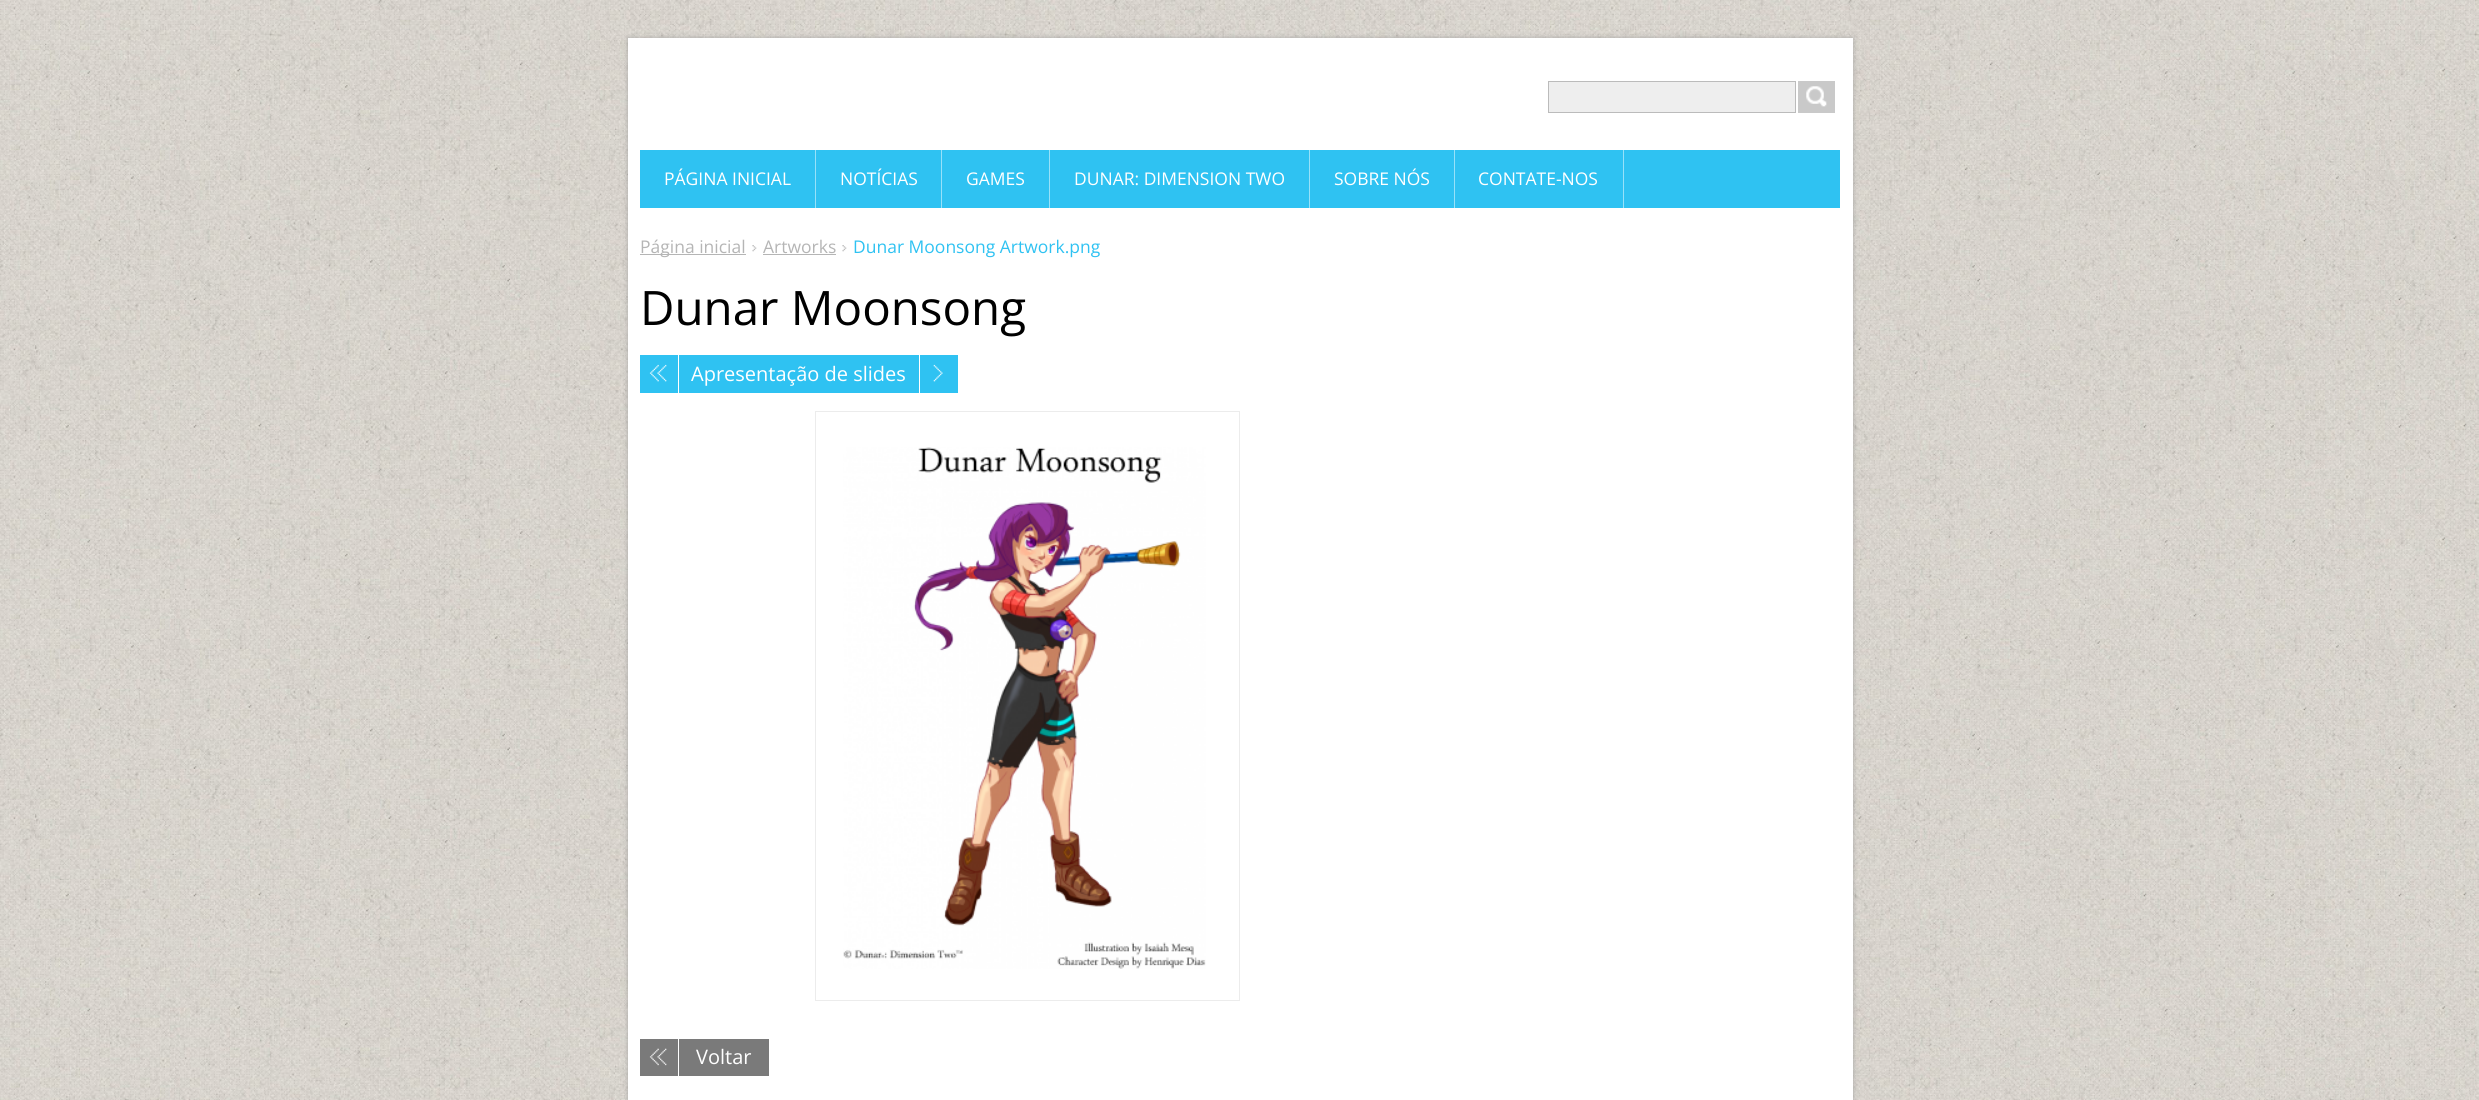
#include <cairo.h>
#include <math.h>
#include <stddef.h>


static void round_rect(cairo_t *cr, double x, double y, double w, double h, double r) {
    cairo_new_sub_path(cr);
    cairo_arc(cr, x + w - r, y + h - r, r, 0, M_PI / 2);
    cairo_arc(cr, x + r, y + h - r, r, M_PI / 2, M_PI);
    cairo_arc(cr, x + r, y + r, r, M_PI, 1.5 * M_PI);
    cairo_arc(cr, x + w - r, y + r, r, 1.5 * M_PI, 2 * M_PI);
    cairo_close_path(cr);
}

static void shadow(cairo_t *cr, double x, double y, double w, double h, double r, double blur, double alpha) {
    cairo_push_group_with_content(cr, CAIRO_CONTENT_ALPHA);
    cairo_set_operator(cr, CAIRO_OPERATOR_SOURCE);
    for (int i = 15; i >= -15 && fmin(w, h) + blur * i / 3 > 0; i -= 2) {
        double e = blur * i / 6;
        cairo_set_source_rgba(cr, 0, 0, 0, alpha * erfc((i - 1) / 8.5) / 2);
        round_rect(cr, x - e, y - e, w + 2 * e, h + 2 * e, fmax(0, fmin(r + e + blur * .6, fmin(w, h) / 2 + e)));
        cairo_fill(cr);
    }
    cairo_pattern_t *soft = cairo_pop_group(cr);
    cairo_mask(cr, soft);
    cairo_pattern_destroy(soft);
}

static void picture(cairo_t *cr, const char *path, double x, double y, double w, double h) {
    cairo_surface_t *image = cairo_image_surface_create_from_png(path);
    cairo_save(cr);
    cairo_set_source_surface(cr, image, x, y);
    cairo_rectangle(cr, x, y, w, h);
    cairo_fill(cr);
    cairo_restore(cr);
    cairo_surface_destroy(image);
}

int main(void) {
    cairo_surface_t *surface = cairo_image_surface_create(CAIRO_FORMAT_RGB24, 2479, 1100);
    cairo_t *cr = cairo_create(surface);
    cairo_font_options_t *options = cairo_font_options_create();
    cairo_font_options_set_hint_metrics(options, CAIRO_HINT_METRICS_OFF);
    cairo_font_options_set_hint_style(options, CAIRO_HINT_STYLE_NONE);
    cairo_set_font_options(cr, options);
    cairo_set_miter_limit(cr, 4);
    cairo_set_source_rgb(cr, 1, 1, 1);
    cairo_paint(cr);
    picture(cr, "img1.png", 0, 0, 2479, 1100);
    cairo_set_source_rgb(cr, 0.596, 0.596, 0.596);
    shadow(cr, 628, 38, 1225, 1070, 0, 2.5, 0.75);
    cairo_set_source_rgb(cr, 1, 1, 1);
    cairo_rectangle(cr, 628, 38, 1225, 1062);
    cairo_fill(cr);
    cairo_set_source_rgb(cr, 0.933, 0.933, 0.933);
    cairo_rectangle(cr, 1548.5, 81.5, 247, 31);
    cairo_fill_preserve(cr);
    cairo_set_source_rgb(cr, 0.733, 0.733, 0.733);
    cairo_set_line_width(cr, 1);
    cairo_stroke(cr);
    cairo_set_source_rgb(cr, 0.788, 0.788, 0.788);
    cairo_rectangle(cr, 1798, 81, 37, 32);
    cairo_fill(cr);
    picture(cr, "img2.png", 1806, 86, 21, 21);
    cairo_set_source_rgb(cr, 0.184, 0.761, 0.949);
    cairo_rectangle(cr, 640, 150, 1200, 58);
    cairo_fill(cr);
    cairo_set_source_rgb(cr, 0.592, 0.882, 0.976);
    cairo_rectangle(cr, 815, 150, 1, 58);
    cairo_fill(cr);
    cairo_select_font_face(cr, "Open Sans", CAIRO_FONT_SLANT_NORMAL, CAIRO_FONT_WEIGHT_NORMAL);
    cairo_set_font_size(cr, 17.5);
    cairo_set_source_rgb(cr, 1, 1, 1);
    cairo_move_to(cr, 664, 185);
    cairo_show_text(cr, "PÁGINA INICIAL");
    cairo_set_source_rgb(cr, 0.592, 0.882, 0.976);
    cairo_rectangle(cr, 941, 150, 1, 58);
    cairo_fill(cr);
    cairo_set_source_rgb(cr, 1, 1, 1);
    cairo_move_to(cr, 840, 185);
    cairo_show_text(cr, "NOTÍCIAS");
    cairo_set_source_rgb(cr, 0.592, 0.882, 0.976);
    cairo_rectangle(cr, 1049, 150, 1, 58);
    cairo_fill(cr);
    cairo_set_source_rgb(cr, 1, 1, 1);
    cairo_move_to(cr, 966, 185);
    cairo_show_text(cr, "GAMES");
    cairo_set_source_rgb(cr, 0.592, 0.882, 0.976);
    cairo_rectangle(cr, 1309, 150, 1, 58);
    cairo_fill(cr);
    cairo_set_source_rgb(cr, 1, 1, 1);
    cairo_move_to(cr, 1074, 185);
    cairo_show_text(cr, "DUNAR: DIMENSION TWO");
    cairo_set_source_rgb(cr, 0.592, 0.882, 0.976);
    cairo_rectangle(cr, 1454, 150, 1, 58);
    cairo_fill(cr);
    cairo_set_source_rgb(cr, 1, 1, 1);
    cairo_move_to(cr, 1334, 185);
    cairo_show_text(cr, "SOBRE NÓS");
    cairo_set_source_rgb(cr, 0.592, 0.882, 0.976);
    cairo_rectangle(cr, 1623, 150, 1, 58);
    cairo_fill(cr);
    cairo_set_source_rgb(cr, 1, 1, 1);
    cairo_move_to(cr, 1478, 185);
    cairo_show_text(cr, "CONTATE-NOS");
    cairo_set_source_rgb(cr, 0.71, 0.71, 0.71);
    cairo_rectangle(cr, 640, 254, 106, 1);
    cairo_fill(cr);
    cairo_move_to(cr, 640, 253);
    cairo_show_text(cr, "Página inicial");
    picture(cr, "img3.png", 752, 245, 5, 7);
    cairo_move_to(cr, 763, 253);
    cairo_show_text(cr, "Artworks");
    cairo_rectangle(cr, 763, 254, 73, 1);
    cairo_fill(cr);
    picture(cr, "img3.png", 842, 245, 5, 7);
    cairo_set_source_rgb(cr, 0.184, 0.761, 0.949);
    cairo_move_to(cr, 853, 253);
    cairo_show_text(cr, "Dunar Moonsong Artwork.png");
    cairo_set_font_size(cr, 47.5);
    cairo_set_source_rgb(cr, 0, 0, 0);
    cairo_move_to(cr, 640, 325);
    cairo_show_text(cr, "Dunar Moonsong");
    cairo_set_source_rgb(cr, 0.184, 0.761, 0.949);
    cairo_rectangle(cr, 640, 355, 38, 38);
    cairo_fill(cr);
    picture(cr, "img4.png", 649, 364, 18, 18);
    cairo_rectangle(cr, 679, 355, 240, 38);
    cairo_fill(cr);
    cairo_set_font_size(cr, 20);
    cairo_set_source_rgb(cr, 1, 1, 1);
    cairo_move_to(cr, 691, 381);
    cairo_show_text(cr, "Apresentação de slides");
    cairo_set_source_rgb(cr, 0.184, 0.761, 0.949);
    cairo_rectangle(cr, 920, 355, 38, 38);
    cairo_fill(cr);
    picture(cr, "img5.png", 933, 364, 10, 18);
    cairo_rectangle(cr, 815.5, 411.5, 424, 589);
    cairo_set_source_rgb(cr, 0.925, 0.925, 0.925);
    cairo_stroke(cr);
    picture(cr, "img6.png", 843, 447, 363, 522);
    cairo_set_source_rgb(cr, 0.478, 0.478, 0.478);
    cairo_rectangle(cr, 640, 1039, 129, 37);
    cairo_fill(cr);
    picture(cr, "img7.png", 649, 1048, 18, 18);
    cairo_set_source_rgb(cr, 1, 1, 1);
    cairo_rectangle(cr, 678, 1039, 1, 37);
    cairo_fill(cr);
    cairo_move_to(cr, 696, 1064);
    cairo_show_text(cr, "Voltar");
    cairo_surface_write_to_png(surface, "page.png");
    cairo_font_options_destroy(options);
    cairo_destroy(cr);
    cairo_surface_destroy(surface);
    return 0;
}
